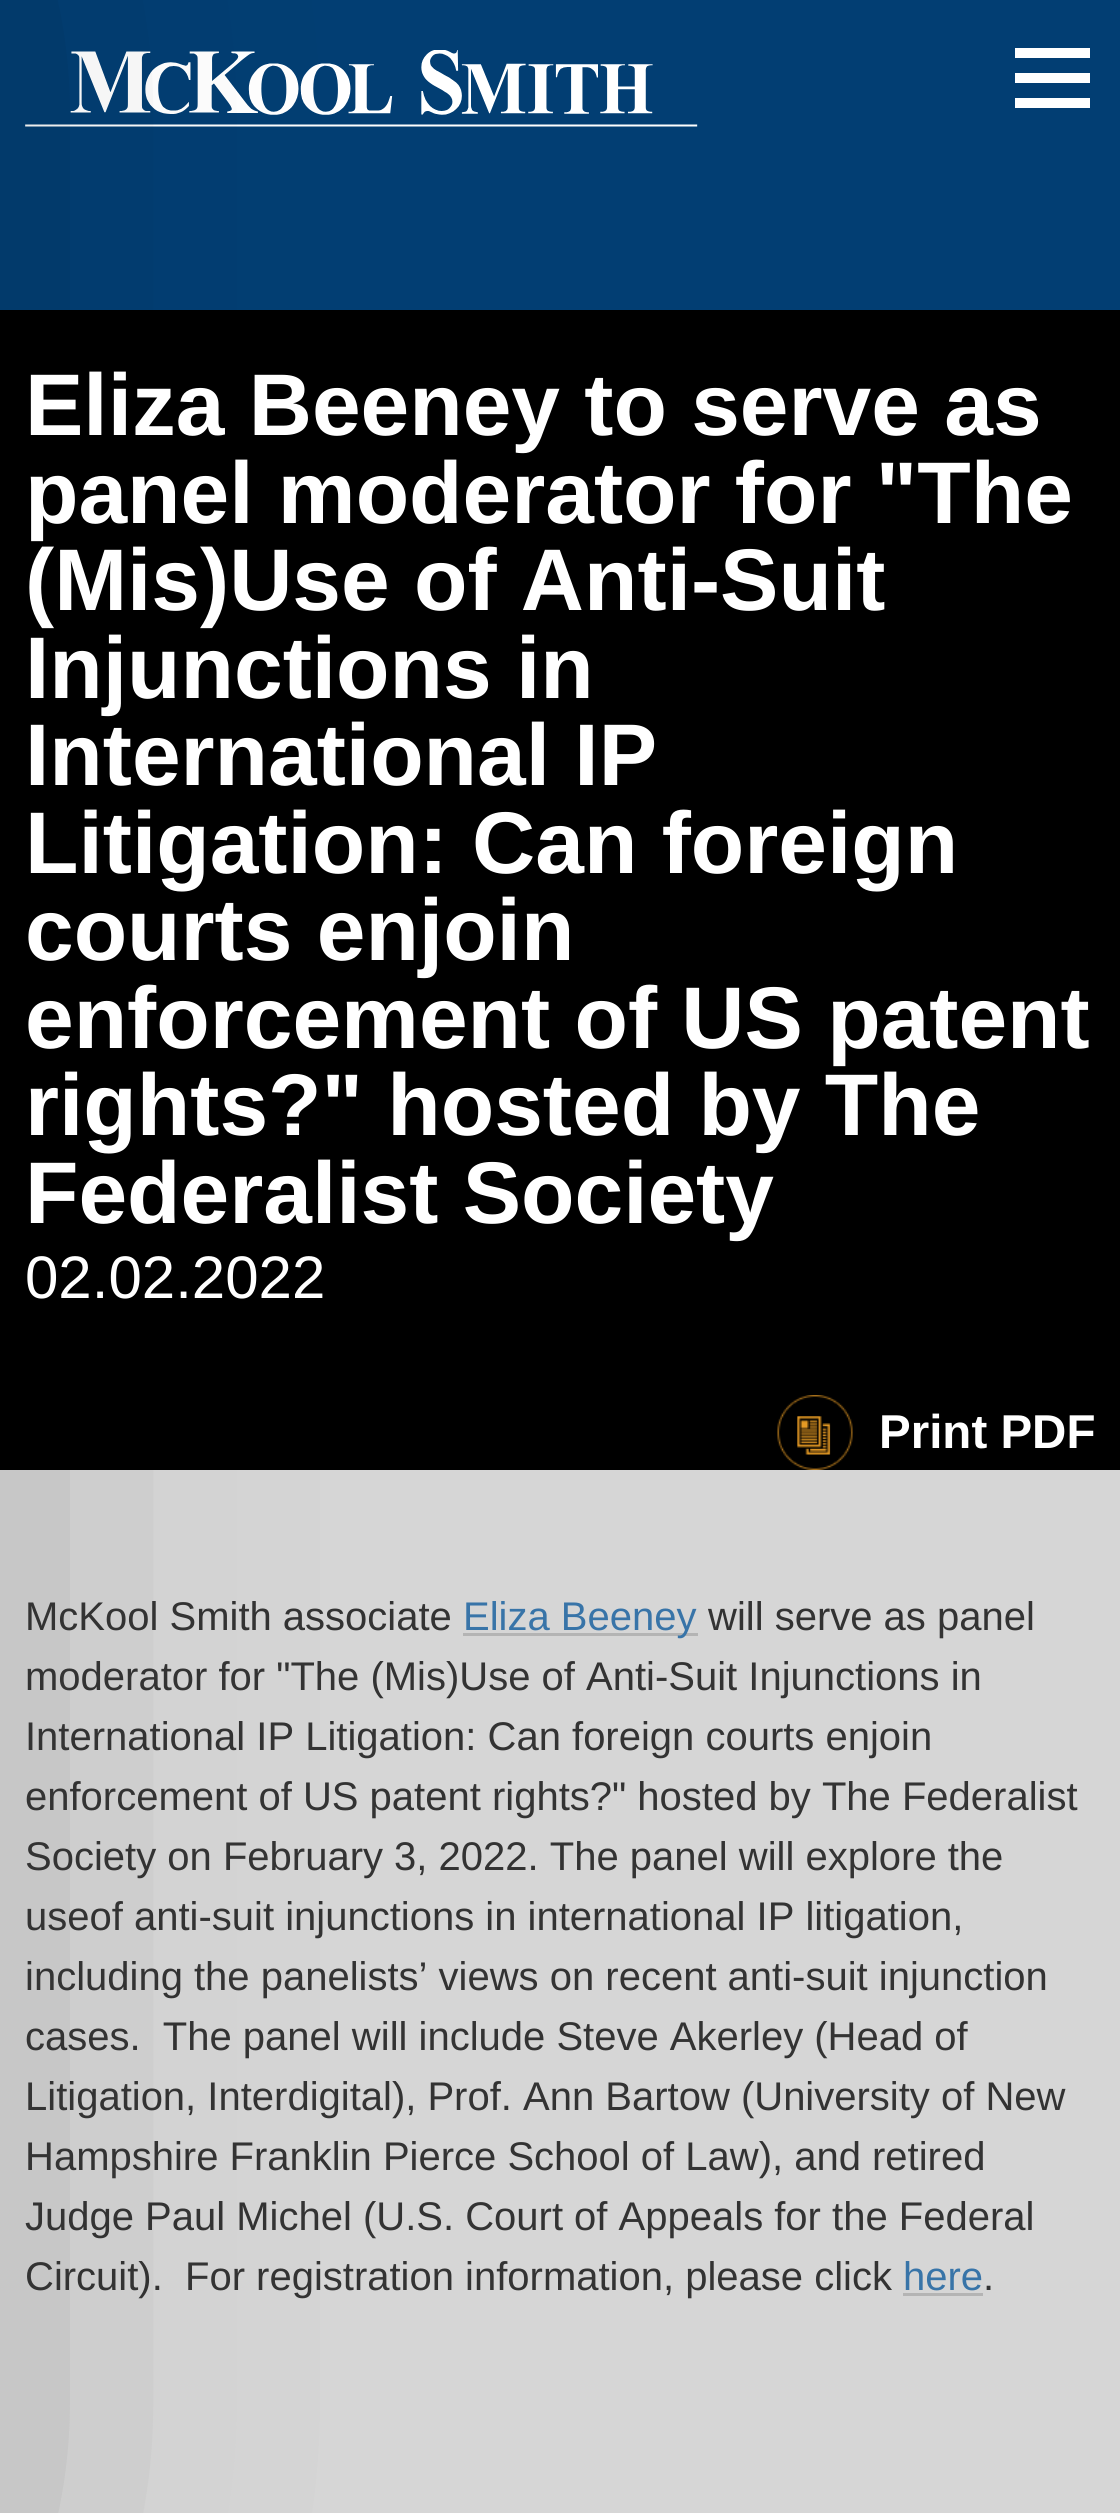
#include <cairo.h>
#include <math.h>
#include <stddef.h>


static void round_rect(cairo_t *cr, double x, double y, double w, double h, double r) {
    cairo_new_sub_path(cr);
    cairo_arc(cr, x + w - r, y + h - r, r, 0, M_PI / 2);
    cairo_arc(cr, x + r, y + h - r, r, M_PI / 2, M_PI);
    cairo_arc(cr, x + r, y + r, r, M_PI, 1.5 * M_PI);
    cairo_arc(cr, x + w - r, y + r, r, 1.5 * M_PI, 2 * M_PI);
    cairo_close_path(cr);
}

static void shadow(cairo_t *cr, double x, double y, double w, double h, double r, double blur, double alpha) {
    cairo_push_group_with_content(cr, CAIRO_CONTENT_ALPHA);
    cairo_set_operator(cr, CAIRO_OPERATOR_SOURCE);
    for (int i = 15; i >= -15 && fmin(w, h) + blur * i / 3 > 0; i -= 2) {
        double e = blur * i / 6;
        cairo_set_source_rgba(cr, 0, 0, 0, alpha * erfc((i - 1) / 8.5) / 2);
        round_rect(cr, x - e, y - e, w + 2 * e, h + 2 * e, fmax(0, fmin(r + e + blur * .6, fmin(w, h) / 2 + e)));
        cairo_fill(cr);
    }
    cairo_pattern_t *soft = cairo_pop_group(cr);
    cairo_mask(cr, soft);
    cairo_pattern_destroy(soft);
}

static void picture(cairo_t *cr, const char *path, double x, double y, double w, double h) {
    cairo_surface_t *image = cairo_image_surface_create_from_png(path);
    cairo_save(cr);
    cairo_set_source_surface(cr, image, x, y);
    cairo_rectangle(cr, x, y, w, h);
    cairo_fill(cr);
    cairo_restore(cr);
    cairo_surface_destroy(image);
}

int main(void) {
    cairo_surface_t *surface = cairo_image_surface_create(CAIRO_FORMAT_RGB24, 1120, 2513);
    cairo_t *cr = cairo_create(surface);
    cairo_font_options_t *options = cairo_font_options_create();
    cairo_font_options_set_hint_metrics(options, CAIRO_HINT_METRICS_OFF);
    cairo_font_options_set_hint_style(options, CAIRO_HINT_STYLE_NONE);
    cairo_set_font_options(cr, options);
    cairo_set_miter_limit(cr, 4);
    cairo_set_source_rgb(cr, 0, 0, 0);
    cairo_paint(cr);
    cairo_set_source_rgb(cr, 0.008, 0.243, 0.451);
    cairo_rectangle(cr, 0, 0, 1120, 310);
    cairo_fill(cr);
    picture(cr, "img1.png", 25, 50, 673, 77);
    cairo_set_source_rgb(cr, 0.839, 0.839, 0.839);
    cairo_rectangle(cr, 0, 1470, 1120, 1043);
    cairo_fill(cr);
    cairo_set_source_rgb(cr, 0, 0, 0);
    shadow(cr, -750, -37, 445, 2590, 0, 250, 0.8);
    cairo_set_source_rgb(cr, 1, 1, 1);
    cairo_rectangle(cr, 1015, 48, 75, 10);
    cairo_fill(cr);
    cairo_rectangle(cr, 1015, 73, 75, 10);
    cairo_fill(cr);
    cairo_rectangle(cr, 1015, 98, 75, 10);
    cairo_fill(cr);
    cairo_select_font_face(cr, "Liberation Sans", CAIRO_FONT_SLANT_NORMAL, CAIRO_FONT_WEIGHT_BOLD);
    cairo_set_font_size(cr, 87.5);
    cairo_move_to(cr, 25, 435);
    cairo_show_text(cr, "Eliza Beeney to serve as");
    cairo_move_to(cr, 25, 523);
    cairo_show_text(cr, "panel moderator for \"The");
    cairo_move_to(cr, 25, 610);
    cairo_show_text(cr, "(Mis)Use of Anti-Suit");
    cairo_move_to(cr, 25, 698);
    cairo_show_text(cr, "Injunctions in");
    cairo_move_to(cr, 25, 785);
    cairo_show_text(cr, "International IP");
    cairo_move_to(cr, 25, 873);
    cairo_show_text(cr, "Litigation: Can foreign");
    cairo_move_to(cr, 25, 960);
    cairo_show_text(cr, "courts enjoin");
    cairo_move_to(cr, 25, 1048);
    cairo_show_text(cr, "enforcement of US patent");
    cairo_move_to(cr, 25, 1135);
    cairo_show_text(cr, "rights?\" hosted by The");
    cairo_move_to(cr, 25, 1223);
    cairo_show_text(cr, "Federalist Society");
    cairo_select_font_face(cr, "Liberation Sans", CAIRO_FONT_SLANT_NORMAL, CAIRO_FONT_WEIGHT_NORMAL);
    cairo_set_font_size(cr, 60);
    cairo_move_to(cr, 25, 1298);
    cairo_show_text(cr, "02.02.2022");
    picture(cr, "img2.png", 777, 1395, 76, 75);
    cairo_select_font_face(cr, "Liberation Sans", CAIRO_FONT_SLANT_NORMAL, CAIRO_FONT_WEIGHT_BOLD);
    cairo_set_font_size(cr, 47.5);
    cairo_move_to(cr, 879, 1448);
    cairo_show_text(cr, "Print PDF");
    cairo_select_font_face(cr, "Liberation Sans", CAIRO_FONT_SLANT_NORMAL, CAIRO_FONT_WEIGHT_NORMAL);
    cairo_set_font_size(cr, 40);
    cairo_set_source_rgb(cr, 0.2, 0.2, 0.2);
    cairo_move_to(cr, 25, 1630);
    cairo_show_text(cr, "McKool Smith associate");
    cairo_set_source_rgb(cr, 0.706, 0.706, 0.706);
    cairo_rectangle(cr, 463, 1633, 235, 3);
    cairo_fill(cr);
    cairo_set_source_rgb(cr, 0.22, 0.455, 0.659);
    cairo_move_to(cr, 463, 1630);
    cairo_show_text(cr, "Eliza Beeney");
    cairo_set_source_rgb(cr, 0.2, 0.2, 0.2);
    cairo_move_to(cr, 708, 1630);
    cairo_show_text(cr, "will serve as panel");
    cairo_move_to(cr, 25, 1690);
    cairo_show_text(cr, "moderator for \"The (Mis)Use of Anti-Suit Injunctions in");
    cairo_move_to(cr, 25, 1750);
    cairo_show_text(cr, "International IP Litigation: Can foreign courts enjoin");
    cairo_move_to(cr, 25, 1810);
    cairo_show_text(cr, "enforcement of US patent rights?\" hosted by The Federalist");
    cairo_move_to(cr, 25, 1870);
    cairo_show_text(cr, "Society on February 3, 2022. The panel will explore the");
    cairo_move_to(cr, 25, 1930);
    cairo_show_text(cr, "useof anti-suit injunctions in international IP litigation,");
    cairo_move_to(cr, 25, 1990);
    cairo_show_text(cr, "including the panelists’ views on recent anti-suit injunction");
    cairo_move_to(cr, 25, 2050);
    cairo_show_text(cr, "cases.  The panel will include Steve Akerley (Head of");
    cairo_move_to(cr, 25, 2110);
    cairo_show_text(cr, "Litigation, Interdigital), Prof. Ann Bartow (University of New");
    cairo_move_to(cr, 25, 2170);
    cairo_show_text(cr, "Hampshire Franklin Pierce School of Law), and retired");
    cairo_move_to(cr, 25, 2230);
    cairo_show_text(cr, "Judge Paul Michel (U.S. Court of Appeals for the Federal");
    cairo_move_to(cr, 25, 2290);
    cairo_show_text(cr, "Circuit).  For registration information, please click");
    cairo_set_source_rgb(cr, 0.22, 0.455, 0.659);
    cairo_move_to(cr, 903, 2290);
    cairo_show_text(cr, "here");
    cairo_set_source_rgb(cr, 0.706, 0.706, 0.706);
    cairo_rectangle(cr, 903, 2293, 80, 3);
    cairo_fill(cr);
    cairo_set_source_rgb(cr, 0.2, 0.2, 0.2);
    cairo_move_to(cr, 983, 2290);
    cairo_show_text(cr, ".");
    cairo_surface_write_to_png(surface, "page.png");
    cairo_font_options_destroy(options);
    cairo_destroy(cr);
    cairo_surface_destroy(surface);
    return 0;
}
